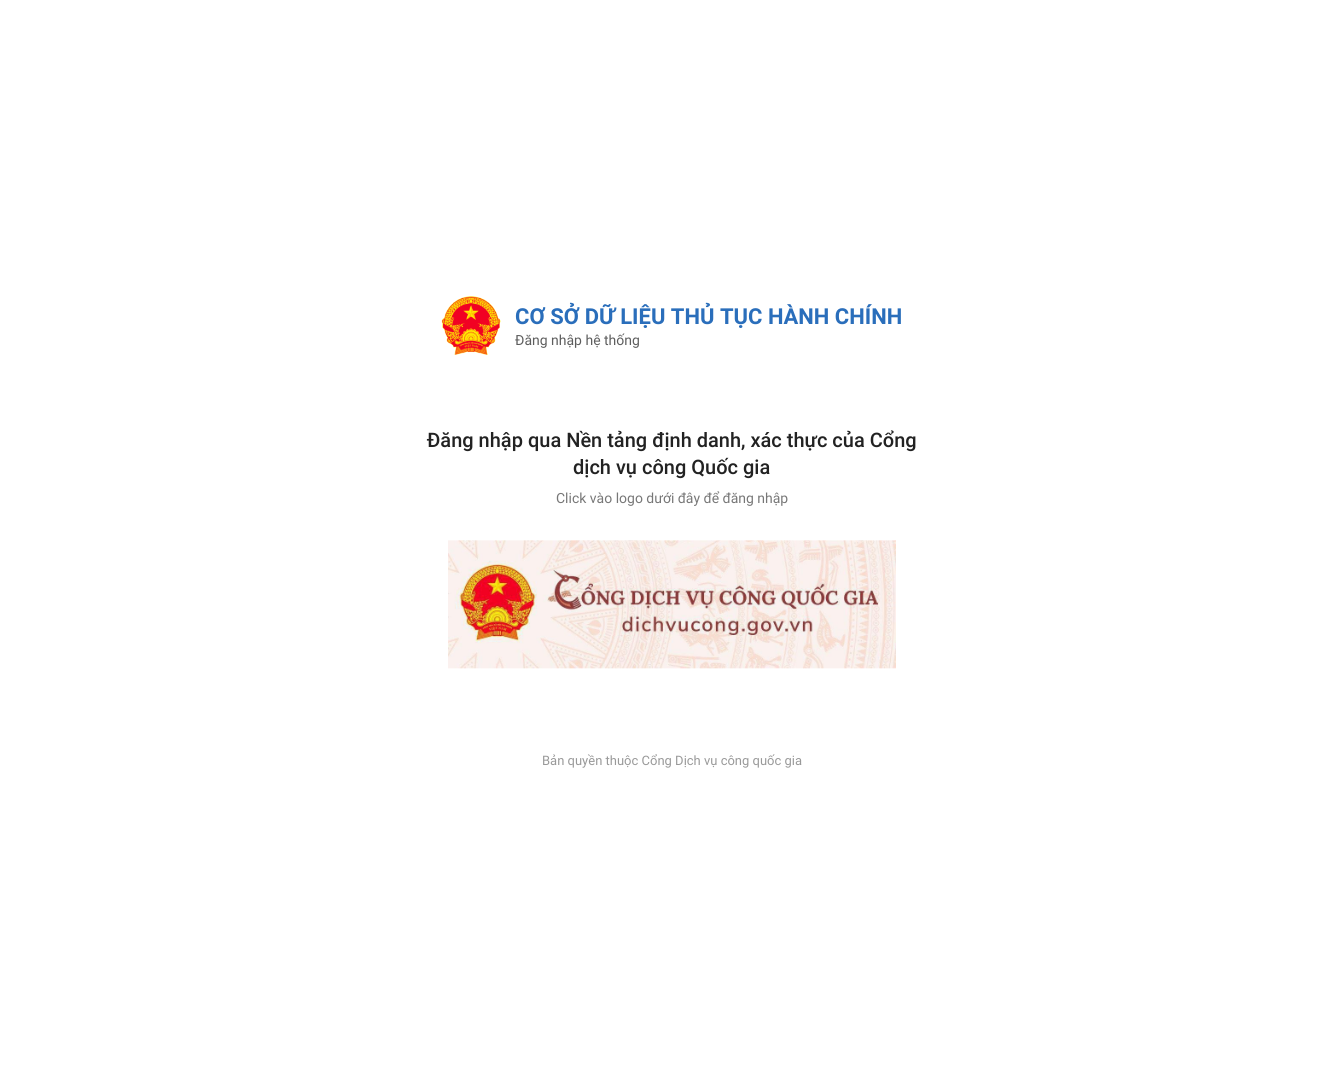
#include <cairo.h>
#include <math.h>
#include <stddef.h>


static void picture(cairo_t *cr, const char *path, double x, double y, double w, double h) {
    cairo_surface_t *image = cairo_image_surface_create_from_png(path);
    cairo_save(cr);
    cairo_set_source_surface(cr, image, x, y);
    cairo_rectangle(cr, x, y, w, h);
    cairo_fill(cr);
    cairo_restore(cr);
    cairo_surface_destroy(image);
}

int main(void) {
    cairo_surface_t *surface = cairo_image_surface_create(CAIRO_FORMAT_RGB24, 1344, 1065);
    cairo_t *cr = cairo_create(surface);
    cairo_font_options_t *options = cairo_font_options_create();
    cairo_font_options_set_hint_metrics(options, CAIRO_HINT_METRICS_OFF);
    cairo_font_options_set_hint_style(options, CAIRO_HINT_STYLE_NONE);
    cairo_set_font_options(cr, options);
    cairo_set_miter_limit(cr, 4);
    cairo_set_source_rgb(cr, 1, 1, 1);
    cairo_paint(cr);
    picture(cr, "img1.png", 441, 296, 60, 59);
    cairo_select_font_face(cr, "Roboto", CAIRO_FONT_SLANT_NORMAL, CAIRO_FONT_WEIGHT_BOLD);
    cairo_set_font_size(cr, 22);
    cairo_set_source_rgb(cr, 0.165, 0.431, 0.733);
    cairo_move_to(cr, 515, 324);
    cairo_show_text(cr, "CƠ SỞ DỮ LIỆU THỦ TỤC HÀNH CHÍNH");
    cairo_select_font_face(cr, "Roboto", CAIRO_FONT_SLANT_NORMAL, CAIRO_FONT_WEIGHT_NORMAL);
    cairo_set_font_size(cr, 14);
    cairo_set_source_rgb(cr, 0.365, 0.365, 0.365);
    cairo_move_to(cr, 515, 345);
    cairo_show_text(cr, "Đăng nhập hệ thống");
    cairo_select_font_face(cr, "Roboto Medium", CAIRO_FONT_SLANT_NORMAL, CAIRO_FONT_WEIGHT_NORMAL);
    cairo_set_font_size(cr, 20);
    cairo_set_source_rgb(cr, 0.133, 0.133, 0.133);
    cairo_move_to(cr, 427, 447);
    cairo_show_text(cr, "Đăng nhập qua Nền tảng định danh, xác thực của Cổng");
    cairo_move_to(cr, 573, 474);
    cairo_show_text(cr, "dịch vụ công Quốc gia");
    cairo_select_font_face(cr, "Roboto", CAIRO_FONT_SLANT_NORMAL, CAIRO_FONT_WEIGHT_NORMAL);
    cairo_set_font_size(cr, 14);
    cairo_set_source_rgb(cr, 0.467, 0.467, 0.467);
    cairo_move_to(cr, 556, 503);
    cairo_show_text(cr, "Click vào logo dưới đây để đăng nhập");
    picture(cr, "img2.png", 448, 540, 448, 129);
    cairo_set_font_size(cr, 13);
    cairo_set_source_rgb(cr, 0.6, 0.6, 0.6);
    cairo_move_to(cr, 542, 765);
    cairo_show_text(cr, "Bản quyền thuộc Cổng Dịch vụ công quốc gia");
    cairo_surface_write_to_png(surface, "page.png");
    cairo_font_options_destroy(options);
    cairo_destroy(cr);
    cairo_surface_destroy(surface);
    return 0;
}
